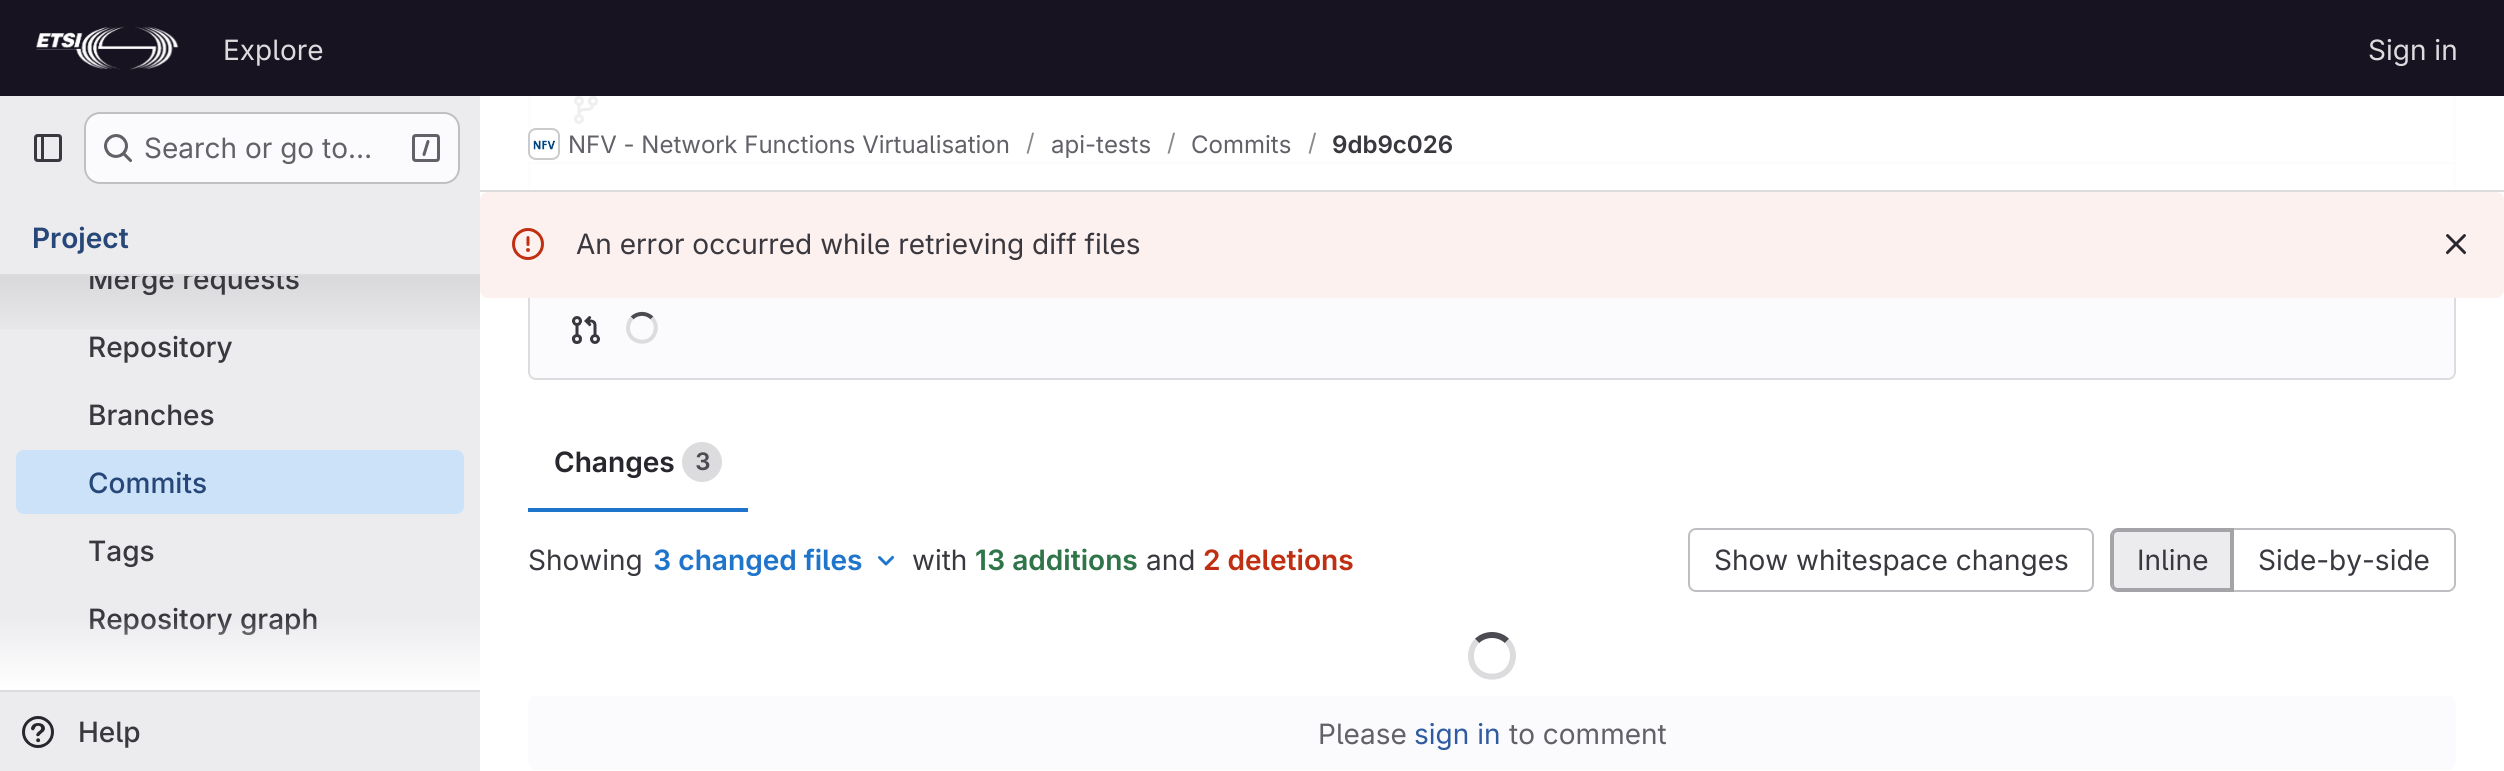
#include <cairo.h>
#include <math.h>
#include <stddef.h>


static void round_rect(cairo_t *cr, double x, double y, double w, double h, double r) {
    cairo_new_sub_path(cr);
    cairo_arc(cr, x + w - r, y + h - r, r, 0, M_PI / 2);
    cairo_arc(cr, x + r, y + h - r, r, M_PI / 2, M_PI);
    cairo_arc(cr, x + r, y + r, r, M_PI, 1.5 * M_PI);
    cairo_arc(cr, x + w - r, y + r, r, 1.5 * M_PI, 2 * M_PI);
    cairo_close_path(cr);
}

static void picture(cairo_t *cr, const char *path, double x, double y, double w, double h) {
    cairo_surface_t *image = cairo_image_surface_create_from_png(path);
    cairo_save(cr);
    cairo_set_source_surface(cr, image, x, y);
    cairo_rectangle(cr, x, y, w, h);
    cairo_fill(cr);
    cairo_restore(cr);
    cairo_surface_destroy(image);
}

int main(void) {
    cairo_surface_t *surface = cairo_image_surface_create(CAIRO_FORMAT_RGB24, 2504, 771);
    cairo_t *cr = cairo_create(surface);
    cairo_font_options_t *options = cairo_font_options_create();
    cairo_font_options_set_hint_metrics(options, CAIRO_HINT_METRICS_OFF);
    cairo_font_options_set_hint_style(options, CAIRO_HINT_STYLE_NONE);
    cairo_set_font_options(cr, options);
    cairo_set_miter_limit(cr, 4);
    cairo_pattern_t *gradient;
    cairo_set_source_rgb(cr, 1, 1, 1);
    cairo_paint(cr);
    cairo_set_source_rgb(cr, 0.984, 0.98, 0.992);
    round_rect(cr, 529, -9, 1926, 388, 7);
    cairo_fill_preserve(cr);
    cairo_set_source_rgb(cr, 0.863, 0.863, 0.871);
    cairo_stroke(cr);
    cairo_set_source_rgb(cr, 0.09, 0.075, 0.129);
    cairo_rectangle(cr, 0, 0, 2504, 96);
    cairo_fill(cr);
    picture(cr, "img1.png", 36, 26, 143, 44);
    cairo_select_font_face(cr, "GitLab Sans", CAIRO_FONT_SLANT_NORMAL, CAIRO_FONT_WEIGHT_NORMAL);
    cairo_set_font_size(cr, 28);
    cairo_set_source_rgb(cr, 0.863, 0.863, 0.871);
    cairo_move_to(cr, 223, 60);
    cairo_show_text(cr, "Explore");
    cairo_move_to(cr, 2368, 60);
    cairo_show_text(cr, "Sign in");
    cairo_set_source_rgb(cr, 0.925, 0.925, 0.937);
    cairo_rectangle(cr, 0, 96, 480, 675);
    cairo_fill(cr);
    picture(cr, "img2.png", 34, 134, 28, 28);
    cairo_set_source_rgb(cr, 0.984, 0.98, 0.992);
    round_rect(cr, 84, 112, 376, 72, 16);
    cairo_fill(cr);
    round_rect(cr, 85, 113, 374, 70, 15);
    cairo_set_source_rgba(cr, 0.02, 0.02, 0.024, 0.24);
    cairo_stroke(cr);
    picture(cr, "img3.png", 104, 134, 29, 29);
    cairo_set_source_rgb(cr, 0.384, 0.38, 0.408);
    cairo_move_to(cr, 144, 158);
    cairo_show_text(cr, "Search or go to…");
    picture(cr, "img4.png", 412, 134, 28, 28);
    cairo_select_font_face(cr, "GitLab Sans SemiBold", CAIRO_FONT_SLANT_NORMAL, CAIRO_FONT_WEIGHT_NORMAL);
    cairo_set_source_rgb(cr, 0.157, 0.278, 0.475);
    cairo_move_to(cr, 32, 248);
    cairo_show_text(cr, "Project");
    cairo_set_source_rgb(cr, 0.863, 0.863, 0.871);
    cairo_rectangle(cr, 0, 274, 480, 2);
    cairo_fill(cr);
    cairo_rectangle(cr, 0, 690, 480, 2);
    cairo_fill(cr);
    gradient = cairo_pattern_create_linear(240, 276, 240, 348);
    cairo_pattern_add_color_stop_rgba(gradient, 0, 0.02, 0.02, 0.024, 0.08);
    cairo_pattern_add_color_stop_rgba(gradient, 1, 0.02, 0.02, 0.024, 0);
    cairo_set_source(cr, gradient);
    cairo_pattern_destroy(gradient);
    cairo_rectangle(cr, 0, 276, 480, 53);
    cairo_fill(cr);
    cairo_save(cr);
    cairo_rectangle(cr, 0, 276, 480, 414);
    cairo_clip(cr);
    cairo_select_font_face(cr, "GitLab Sans Medium", CAIRO_FONT_SLANT_NORMAL, CAIRO_FONT_WEIGHT_NORMAL);
    cairo_set_source_rgb(cr, 0.227, 0.22, 0.247);
    cairo_move_to(cr, 88, 289);
    cairo_show_text(cr, "Merge requests");
    cairo_restore(cr);
    cairo_select_font_face(cr, "GitLab Sans Medium", CAIRO_FONT_SLANT_NORMAL, CAIRO_FONT_WEIGHT_NORMAL);
    cairo_set_source_rgb(cr, 0.227, 0.22, 0.247);
    cairo_move_to(cr, 88, 357);
    cairo_show_text(cr, "Repository");
    cairo_move_to(cr, 88, 425);
    cairo_show_text(cr, "Branches");
    cairo_set_source_rgb(cr, 0.796, 0.886, 0.976);
    round_rect(cr, 16, 450, 448, 64, 8);
    cairo_fill(cr);
    cairo_set_source_rgb(cr, 0.157, 0.278, 0.475);
    cairo_move_to(cr, 88, 493);
    cairo_show_text(cr, "Commits");
    cairo_set_source_rgb(cr, 0.227, 0.22, 0.247);
    cairo_move_to(cr, 88, 561);
    cairo_show_text(cr, "Tags");
    cairo_move_to(cr, 88, 629);
    cairo_show_text(cr, "Repository graph");
    gradient = cairo_pattern_create_linear(240, 618, 240, 690);
    cairo_pattern_add_color_stop_rgba(gradient, 0, 1, 1, 1, 0);
    cairo_pattern_add_color_stop_rgba(gradient, 1, 1, 1, 1, 1);
    cairo_set_source(cr, gradient);
    cairo_pattern_destroy(gradient);
    cairo_rectangle(cr, 0, 620, 480, 70);
    cairo_fill(cr);
    picture(cr, "img5.png", 22, 716, 32, 32);
    cairo_set_source_rgb(cr, 0.227, 0.22, 0.247);
    cairo_move_to(cr, 78, 742);
    cairo_show_text(cr, "Help");
    picture(cr, "img9.png", 574, 96, 24, 28);
    cairo_set_source_rgb(cr, 0.863, 0.863, 0.871);
    cairo_rectangle(cr, 530, 162, 1924, 2);
    cairo_fill(cr);
    cairo_set_source_rgba(cr, 1, 1, 1, 0.92);
    cairo_rectangle(cr, 528, 96, 1928, 94);
    cairo_fill(cr);
    cairo_set_source_rgb(cr, 0.863, 0.863, 0.871);
    cairo_rectangle(cr, 480, 190, 2024, 2);
    cairo_fill(cr);
    round_rect(cr, 529, 129, 30, 30, 7);
    cairo_stroke(cr);
    picture(cr, "img6.png", 530, 134, 28, 22);
    round_rect(cr, 529, 129, 30, 30, 7);
    cairo_set_source_rgba(cr, 0.02, 0.02, 0.024, 0.08);
    cairo_stroke(cr);
    cairo_select_font_face(cr, "GitLab Sans", CAIRO_FONT_SLANT_NORMAL, CAIRO_FONT_WEIGHT_NORMAL);
    cairo_set_font_size(cr, 24);
    cairo_set_source_rgb(cr, 0.384, 0.38, 0.408);
    cairo_move_to(cr, 568, 153);
    cairo_show_text(cr, "NFV - Network Functions Virtualisation");
    cairo_set_source_rgb(cr, 0.537, 0.533, 0.553);
    cairo_move_to(cr, 1026, 151);
    cairo_show_text(cr, "/");
    cairo_set_source_rgb(cr, 0.384, 0.38, 0.408);
    cairo_move_to(cr, 1051, 153);
    cairo_show_text(cr, "api-tests");
    cairo_set_source_rgb(cr, 0.537, 0.533, 0.553);
    cairo_move_to(cr, 1167, 151);
    cairo_show_text(cr, "/");
    cairo_set_source_rgb(cr, 0.384, 0.38, 0.408);
    cairo_move_to(cr, 1191, 153);
    cairo_show_text(cr, "Commits");
    cairo_set_source_rgb(cr, 0.537, 0.533, 0.553);
    cairo_move_to(cr, 1308, 151);
    cairo_show_text(cr, "/");
    cairo_select_font_face(cr, "GitLab Sans SemiBold", CAIRO_FONT_SLANT_NORMAL, CAIRO_FONT_WEIGHT_NORMAL);
    cairo_set_source_rgb(cr, 0.227, 0.22, 0.247);
    cairo_move_to(cr, 1332, 153);
    cairo_show_text(cr, "9db9c026");
    cairo_set_source_rgb(cr, 0.988, 0.945, 0.937);
    round_rect(cr, 480, 192, 2024, 106, 8);
    cairo_fill(cr);
    picture(cr, "img7.png", 512, 228, 32, 32);
    cairo_select_font_face(cr, "GitLab Sans", CAIRO_FONT_SLANT_NORMAL, CAIRO_FONT_WEIGHT_NORMAL);
    cairo_set_font_size(cr, 28);
    cairo_set_source_rgb(cr, 0.227, 0.22, 0.247);
    cairo_move_to(cr, 576, 254);
    cairo_show_text(cr, "An error occurred while retrieving diff files");
    picture(cr, "img8.png", 2445, 234, 22, 21);
    picture(cr, "img10.png", 571, 316, 29, 28);
    cairo_new_path(cr);
    cairo_move_to(cr, 632, 318);
    cairo_curve_to(cr, 637.5, 312.5, 646.5, 312.5, 652, 318);
    cairo_set_source_rgb(cr, 0.298, 0.294, 0.318);
    cairo_set_line_width(cr, 4);
    cairo_stroke(cr);
    cairo_new_path(cr);
    cairo_move_to(cr, 652, 318);
    cairo_curve_to(cr, 655, 321.5, 656.5, 326, 655.5, 330.5);
    cairo_curve_to(cr, 652.5, 347, 628, 344.5, 628, 328);
    cairo_curve_to(cr, 628, 324.5, 629.5, 320.5, 632, 318);
    cairo_set_source_rgb(cr, 0.863, 0.863, 0.871);
    cairo_stroke(cr);
    cairo_select_font_face(cr, "GitLab Sans SemiBold", CAIRO_FONT_SLANT_NORMAL, CAIRO_FONT_WEIGHT_NORMAL);
    cairo_set_source_rgb(cr, 0.157, 0.153, 0.176);
    cairo_move_to(cr, 554, 472);
    cairo_show_text(cr, "Changes");
    cairo_set_source_rgb(cr, 0.863, 0.863, 0.871);
    cairo_new_path(cr);
    cairo_arc(cr, 702, 462, 20, 0, 2 * M_PI);
    cairo_fill(cr);
    cairo_set_font_size(cr, 24);
    cairo_set_source_rgb(cr, 0.298, 0.294, 0.318);
    cairo_move_to(cr, 695, 470);
    cairo_show_text(cr, "3");
    cairo_set_source_rgb(cr, 0.122, 0.459, 0.796);
    cairo_rectangle(cr, 528, 508, 220, 4);
    cairo_fill(cr);
    cairo_select_font_face(cr, "GitLab Sans", CAIRO_FONT_SLANT_NORMAL, CAIRO_FONT_WEIGHT_NORMAL);
    cairo_set_font_size(cr, 28);
    cairo_set_source_rgb(cr, 0.227, 0.22, 0.247);
    cairo_move_to(cr, 528, 570);
    cairo_show_text(cr, "Showing");
    cairo_select_font_face(cr, "GitLab Sans SemiBold", CAIRO_FONT_SLANT_NORMAL, CAIRO_FONT_WEIGHT_NORMAL);
    cairo_set_source_rgb(cr, 0.122, 0.459, 0.796);
    cairo_move_to(cr, 653, 570);
    cairo_show_text(cr, "3 changed files");
    picture(cr, "img11.png", 878, 555, 17, 11);
    cairo_select_font_face(cr, "GitLab Sans", CAIRO_FONT_SLANT_NORMAL, CAIRO_FONT_WEIGHT_NORMAL);
    cairo_set_source_rgb(cr, 0.227, 0.22, 0.247);
    cairo_move_to(cr, 912, 570);
    cairo_show_text(cr, "with");
    cairo_select_font_face(cr, "GitLab Sans SemiBold", CAIRO_FONT_SLANT_NORMAL, CAIRO_FONT_WEIGHT_NORMAL);
    cairo_set_source_rgb(cr, 0.184, 0.459, 0.286);
    cairo_move_to(cr, 975, 570);
    cairo_show_text(cr, "13 additions");
    cairo_select_font_face(cr, "GitLab Sans", CAIRO_FONT_SLANT_NORMAL, CAIRO_FONT_WEIGHT_NORMAL);
    cairo_set_source_rgb(cr, 0.227, 0.22, 0.247);
    cairo_move_to(cr, 1146, 570);
    cairo_show_text(cr, "and");
    cairo_select_font_face(cr, "GitLab Sans SemiBold", CAIRO_FONT_SLANT_NORMAL, CAIRO_FONT_WEIGHT_NORMAL);
    cairo_set_source_rgb(cr, 0.753, 0.184, 0.071);
    cairo_move_to(cr, 1203, 570);
    cairo_show_text(cr, "2 deletions");
    round_rect(cr, 1689, 529, 404, 62, 7);
    cairo_set_source_rgb(cr, 0.749, 0.749, 0.765);
    cairo_set_line_width(cr, 2);
    cairo_stroke(cr);
    cairo_select_font_face(cr, "GitLab Sans", CAIRO_FONT_SLANT_NORMAL, CAIRO_FONT_WEIGHT_NORMAL);
    cairo_set_source_rgb(cr, 0.227, 0.22, 0.247);
    cairo_move_to(cr, 1714, 570);
    cairo_show_text(cr, "Show whitespace changes");
    cairo_set_source_rgb(cr, 0.925, 0.925, 0.937);
    cairo_new_path(cr);
    cairo_move_to(cr, 2118, 531);
    cairo_line_to(cr, 2231, 531);
    cairo_line_to(cr, 2231, 589);
    cairo_line_to(cr, 2118, 589);
    cairo_curve_to(cr, 2115, 589, 2113, 587, 2113, 584);
    cairo_line_to(cr, 2113, 536);
    cairo_curve_to(cr, 2113, 533, 2115, 531, 2118, 531);
    cairo_close_path(cr);
    cairo_fill_preserve(cr);
    cairo_set_source_rgb(cr, 0.643, 0.639, 0.659);
    cairo_stroke(cr);
    cairo_set_fill_rule(cr, CAIRO_FILL_RULE_EVEN_ODD);
    cairo_new_path(cr);
    cairo_move_to(cr, 2118, 528);
    cairo_line_to(cr, 2232, 528);
    cairo_line_to(cr, 2232, 592);
    cairo_line_to(cr, 2118, 592);
    cairo_curve_to(cr, 2114, 592, 2110, 588, 2110, 584);
    cairo_line_to(cr, 2110, 536);
    cairo_curve_to(cr, 2110, 532, 2114, 528, 2118, 528);
    cairo_close_path(cr);
    cairo_move_to(cr, 2118, 530);
    cairo_line_to(cr, 2232, 530);
    cairo_line_to(cr, 2232, 590);
    cairo_line_to(cr, 2118, 590);
    cairo_curve_to(cr, 2115, 590, 2112, 587, 2112, 584);
    cairo_line_to(cr, 2112, 536);
    cairo_curve_to(cr, 2112, 533, 2115, 530, 2118, 530);
    cairo_close_path(cr);
    cairo_fill(cr);
    cairo_set_source_rgb(cr, 0.227, 0.22, 0.247);
    cairo_move_to(cr, 2137, 570);
    cairo_show_text(cr, "Inline");
    cairo_set_source_rgb(cr, 0.749, 0.749, 0.765);
    cairo_new_path(cr);
    cairo_move_to(cr, 2234, 528);
    cairo_line_to(cr, 2448, 528);
    cairo_curve_to(cr, 2452, 528, 2456, 532, 2456, 536);
    cairo_line_to(cr, 2456, 584);
    cairo_curve_to(cr, 2456, 588, 2452, 592, 2448, 592);
    cairo_line_to(cr, 2234, 592);
    cairo_close_path(cr);
    cairo_move_to(cr, 2234, 530);
    cairo_line_to(cr, 2448, 530);
    cairo_curve_to(cr, 2451, 530, 2454, 533, 2454, 536);
    cairo_line_to(cr, 2454, 584);
    cairo_curve_to(cr, 2454, 587, 2451, 590, 2448, 590);
    cairo_line_to(cr, 2234, 590);
    cairo_close_path(cr);
    cairo_fill(cr);
    cairo_set_source_rgb(cr, 0.643, 0.639, 0.659);
    cairo_rectangle(cr, 2232, 528, 2, 64);
    cairo_fill(cr);
    cairo_set_source_rgb(cr, 0.227, 0.22, 0.247);
    cairo_move_to(cr, 2258, 570);
    cairo_show_text(cr, "Side-by-side");
    cairo_new_path(cr);
    cairo_move_to(cr, 1477, 641);
    cairo_curve_to(cr, 1485, 633, 1499, 633, 1507, 641);
    cairo_set_source_rgb(cr, 0.298, 0.294, 0.318);
    cairo_set_line_width(cr, 6);
    cairo_stroke(cr);
    cairo_new_path(cr);
    cairo_move_to(cr, 1507, 641);
    cairo_curve_to(cr, 1512, 646, 1514, 653.5, 1512.5, 660);
    cairo_curve_to(cr, 1507.5, 684.5, 1471, 681, 1471, 656);
    cairo_curve_to(cr, 1471, 650.5, 1473, 645, 1477, 641);
    cairo_set_source_rgb(cr, 0.863, 0.863, 0.871);
    cairo_stroke(cr);
    cairo_set_source_rgb(cr, 0.984, 0.98, 0.992);
    round_rect(cr, 528, 696, 1928, 74, 8);
    cairo_fill(cr);
    cairo_set_source_rgb(cr, 0.384, 0.38, 0.408);
    cairo_move_to(cr, 1318, 744);
    cairo_show_text(cr, "Please");
    cairo_set_source_rgb(cr, 0.184, 0.361, 0.627);
    cairo_move_to(cr, 1414, 744);
    cairo_show_text(cr, "sign in");
    cairo_set_source_rgb(cr, 0.384, 0.38, 0.408);
    cairo_move_to(cr, 1509, 744);
    cairo_show_text(cr, "to comment");
    cairo_surface_write_to_png(surface, "page.png");
    cairo_font_options_destroy(options);
    cairo_destroy(cr);
    cairo_surface_destroy(surface);
    return 0;
}
